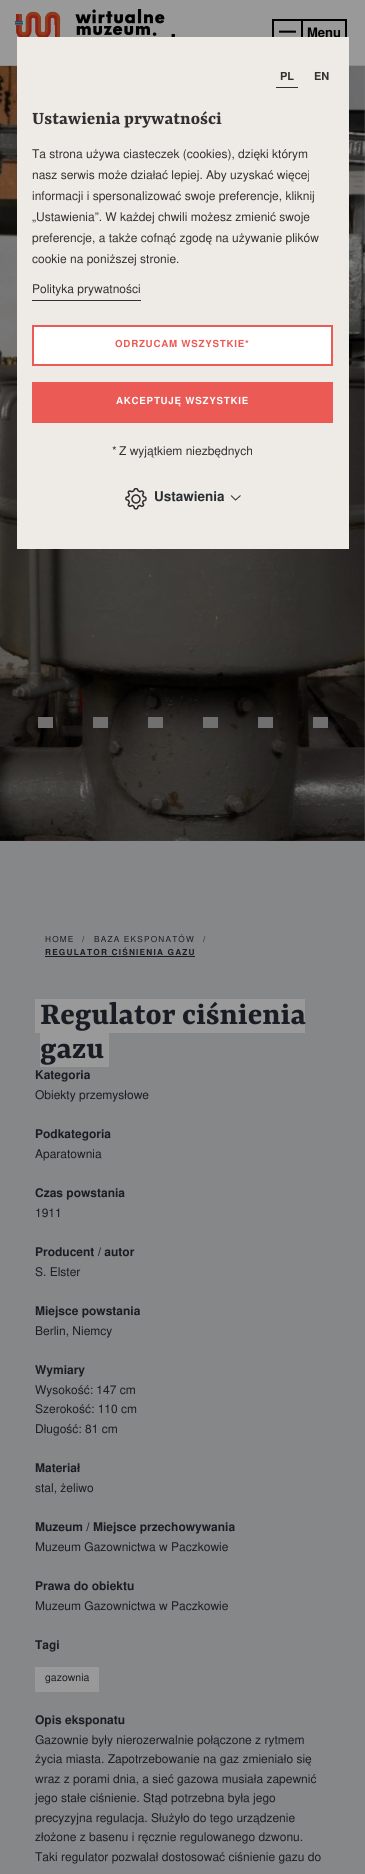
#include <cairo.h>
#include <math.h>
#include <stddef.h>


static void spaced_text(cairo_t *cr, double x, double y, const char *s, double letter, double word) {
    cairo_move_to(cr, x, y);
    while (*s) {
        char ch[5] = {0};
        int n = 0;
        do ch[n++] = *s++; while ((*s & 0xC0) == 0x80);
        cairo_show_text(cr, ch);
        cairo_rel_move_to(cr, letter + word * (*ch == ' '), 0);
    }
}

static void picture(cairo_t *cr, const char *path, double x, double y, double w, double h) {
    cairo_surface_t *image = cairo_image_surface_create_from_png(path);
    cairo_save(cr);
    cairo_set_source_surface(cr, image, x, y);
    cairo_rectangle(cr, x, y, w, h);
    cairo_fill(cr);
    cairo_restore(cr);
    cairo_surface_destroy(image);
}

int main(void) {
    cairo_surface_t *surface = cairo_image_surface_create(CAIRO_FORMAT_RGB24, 365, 1874);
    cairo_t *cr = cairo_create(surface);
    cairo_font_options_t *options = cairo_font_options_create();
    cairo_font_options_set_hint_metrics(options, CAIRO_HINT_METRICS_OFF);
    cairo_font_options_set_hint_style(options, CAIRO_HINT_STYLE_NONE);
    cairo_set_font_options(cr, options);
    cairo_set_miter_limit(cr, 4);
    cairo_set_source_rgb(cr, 0.522, 0.529, 0.533);
    cairo_paint(cr);
    cairo_set_source_rgb(cr, 0.6, 0.6, 0.6);
    cairo_rectangle(cr, 0, 0, 365, 65);
    cairo_fill(cr);
    cairo_set_source_rgb(cr, 0.545, 0.545, 0.545);
    cairo_rectangle(cr, 0, 65, 365, 1);
    cairo_fill(cr);
    picture(cr, "img1.png", 15, 9, 160, 28);
    cairo_rectangle(cr, 273, 20, 73, 28);
    cairo_set_source_rgb(cr, 0, 0, 0);
    cairo_stroke(cr);
    picture(cr, "img2.png", 279, 30, 17, 3);
    cairo_rectangle(cr, 301, 21, 2, 16);
    cairo_fill(cr);
    cairo_select_font_face(cr, "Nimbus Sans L", CAIRO_FONT_SLANT_NORMAL, CAIRO_FONT_WEIGHT_BOLD);
    cairo_set_font_size(cr, 13);
    cairo_move_to(cr, 307, 37);
    cairo_show_text(cr, "Menu");
    picture(cr, "img4.png", 0, 66, 365, 775);
    cairo_set_source_rgb(cr, 0.933, 0.918, 0.902);
    cairo_rectangle(cr, 17, 37, 332, 512);
    cairo_fill(cr);
    cairo_set_font_size(cr, 11);
    cairo_set_source_rgb(cr, 0.192, 0.192, 0.192);
    cairo_move_to(cr, 280, 80);
    cairo_show_text(cr, "PL");
    cairo_rectangle(cr, 276, 87, 22, 1);
    cairo_fill(cr);
    cairo_move_to(cr, 314, 80);
    cairo_show_text(cr, "EN");
    cairo_select_font_face(cr, "Rasa", CAIRO_FONT_SLANT_NORMAL, CAIRO_FONT_WEIGHT_BOLD);
    cairo_set_font_size(cr, 19.5);
    cairo_move_to(cr, 32, 124);
    cairo_show_text(cr, "Ustawienia prywatności");
    cairo_select_font_face(cr, "Nimbus Sans L", CAIRO_FONT_SLANT_NORMAL, CAIRO_FONT_WEIGHT_NORMAL);
    cairo_set_font_size(cr, 12);
    cairo_move_to(cr, 32, 158);
    cairo_show_text(cr, "Ta strona używa ciasteczek (cookies), dzięki którym");
    cairo_move_to(cr, 32, 179);
    cairo_show_text(cr, "nasz serwis może działać lepiej. Aby uzyskać więcej");
    cairo_move_to(cr, 32, 200);
    cairo_show_text(cr, "informacji i spersonalizować swoje preferencje, kliknij");
    cairo_move_to(cr, 32, 221);
    cairo_show_text(cr, "„Ustawienia”. W każdej chwili możesz zmienić swoje");
    cairo_move_to(cr, 32, 242);
    cairo_show_text(cr, "preferencje, a także cofnąć zgodę na używanie plików");
    cairo_move_to(cr, 32, 263);
    cairo_show_text(cr, "cookie na poniższej stronie.");
    cairo_move_to(cr, 32, 293);
    cairo_show_text(cr, "Polityka prywatności");
    cairo_rectangle(cr, 32, 300, 109, 1);
    cairo_fill(cr);
    cairo_set_source_rgb(cr, 1, 1, 1);
    cairo_rectangle(cr, 33, 326, 299, 39);
    cairo_fill_preserve(cr);
    cairo_set_source_rgb(cr, 0.925, 0.353, 0.333);
    cairo_stroke(cr);
    cairo_select_font_face(cr, "Nimbus Sans L", CAIRO_FONT_SLANT_NORMAL, CAIRO_FONT_WEIGHT_BOLD);
    cairo_set_font_size(cr, 9.75);
    spaced_text(cr, 115, 347, "ODRZUCAM WSZYSTKIE*", 0.75, 0);
    cairo_rectangle(cr, 32, 382, 301, 41);
    cairo_fill(cr);
    cairo_set_source_rgb(cr, 1, 1, 1);
    spaced_text(cr, 116, 404, "AKCEPTUJĘ WSZYSTKIE", 0.75, 0);
    cairo_select_font_face(cr, "Nimbus Sans L", CAIRO_FONT_SLANT_NORMAL, CAIRO_FONT_WEIGHT_NORMAL);
    cairo_set_font_size(cr, 12);
    cairo_set_source_rgb(cr, 0.192, 0.192, 0.192);
    cairo_move_to(cr, 112, 455);
    cairo_show_text(cr, "*");
    cairo_move_to(cr, 119, 455);
    cairo_show_text(cr, "Z wyjątkiem niezbędnych");
    picture(cr, "img3.png", 125, 488, 22, 22);
    cairo_select_font_face(cr, "Nimbus Sans L", CAIRO_FONT_SLANT_NORMAL, CAIRO_FONT_WEIGHT_BOLD);
    cairo_set_font_size(cr, 13.5);
    cairo_set_source_rgb(cr, 0.161, 0.18, 0.2);
    cairo_move_to(cr, 154, 501);
    cairo_show_text(cr, "Ustawienia");
    cairo_new_path(cr);
    cairo_move_to(cr, 231, 495.5);
    cairo_line_to(cr, 235.5, 500);
    cairo_line_to(cr, 240.5, 495.5);
    cairo_set_source_rgb(cr, 0.169, 0.169, 0.169);
    cairo_set_line_width(cr, 1);
    cairo_stroke(cr);
    cairo_set_source_rgb(cr, 0.439, 0.439, 0.439);
    cairo_rectangle(cr, 38, 717, 15, 11);
    cairo_fill(cr);
    cairo_rectangle(cr, 93, 717, 15, 11);
    cairo_fill(cr);
    cairo_rectangle(cr, 148, 717, 15, 11);
    cairo_fill(cr);
    cairo_rectangle(cr, 203, 717, 15, 11);
    cairo_fill(cr);
    cairo_rectangle(cr, 258, 717, 15, 11);
    cairo_fill(cr);
    cairo_rectangle(cr, 313, 717, 15, 11);
    cairo_fill(cr);
    cairo_select_font_face(cr, "Nimbus Sans L", CAIRO_FONT_SLANT_NORMAL, CAIRO_FONT_WEIGHT_NORMAL);
    cairo_set_font_size(cr, 8.25);
    cairo_set_source_rgb(cr, 0.098, 0.11, 0.133);
    spaced_text(cr, 45, 942, "HOME", 1.2, 0);
    cairo_move_to(cr, 82, 942);
    cairo_show_text(cr, "/");
    spaced_text(cr, 94, 942, "BAZA EKSPONATÓW", 1.2, 0);
    cairo_move_to(cr, 203, 942);
    cairo_show_text(cr, "/");
    cairo_select_font_face(cr, "Nimbus Sans L", CAIRO_FONT_SLANT_NORMAL, CAIRO_FONT_WEIGHT_BOLD);
    spaced_text(cr, 45, 955, "REGULATOR CIŚNIENIA GAZU", 1.2, 0);
    cairo_rectangle(cr, 45, 956, 150, 1);
    cairo_fill(cr);
    cairo_set_source_rgb(cr, 0.6, 0.6, 0.6);
    cairo_rectangle(cr, 35, 999, 270, 34);
    cairo_fill(cr);
    cairo_select_font_face(cr, "Rasa", CAIRO_FONT_SLANT_NORMAL, CAIRO_FONT_WEIGHT_BOLD);
    cairo_set_font_size(cr, 33.75);
    cairo_set_source_rgb(cr, 0.098, 0.11, 0.133);
    cairo_move_to(cr, 40, 1024);
    cairo_show_text(cr, "Regulator ciśnienia");
    cairo_set_source_rgb(cr, 0.6, 0.6, 0.6);
    cairo_rectangle(cr, 40, 1033, 69, 34);
    cairo_fill(cr);
    cairo_set_source_rgb(cr, 0.098, 0.11, 0.133);
    cairo_move_to(cr, 40, 1058);
    cairo_show_text(cr, "gazu");
    cairo_select_font_face(cr, "Nimbus Sans L", CAIRO_FONT_SLANT_NORMAL, CAIRO_FONT_WEIGHT_BOLD);
    cairo_set_font_size(cr, 12);
    cairo_move_to(cr, 35, 1079);
    cairo_show_text(cr, "Kategoria");
    cairo_select_font_face(cr, "Nimbus Sans L", CAIRO_FONT_SLANT_NORMAL, CAIRO_FONT_WEIGHT_NORMAL);
    cairo_move_to(cr, 35, 1099);
    cairo_show_text(cr, "Obiekty przemysłowe");
    cairo_select_font_face(cr, "Nimbus Sans L", CAIRO_FONT_SLANT_NORMAL, CAIRO_FONT_WEIGHT_BOLD);
    cairo_move_to(cr, 35, 1138);
    cairo_show_text(cr, "Podkategoria");
    cairo_select_font_face(cr, "Nimbus Sans L", CAIRO_FONT_SLANT_NORMAL, CAIRO_FONT_WEIGHT_NORMAL);
    cairo_move_to(cr, 35, 1158);
    cairo_show_text(cr, "Aparatownia");
    cairo_select_font_face(cr, "Nimbus Sans L", CAIRO_FONT_SLANT_NORMAL, CAIRO_FONT_WEIGHT_BOLD);
    cairo_move_to(cr, 35, 1197);
    cairo_show_text(cr, "Czas powstania");
    cairo_select_font_face(cr, "Nimbus Sans L", CAIRO_FONT_SLANT_NORMAL, CAIRO_FONT_WEIGHT_NORMAL);
    cairo_move_to(cr, 35, 1217);
    cairo_show_text(cr, "1911");
    cairo_select_font_face(cr, "Nimbus Sans L", CAIRO_FONT_SLANT_NORMAL, CAIRO_FONT_WEIGHT_BOLD);
    cairo_move_to(cr, 35, 1256);
    cairo_show_text(cr, "Producent / autor");
    cairo_select_font_face(cr, "Nimbus Sans L", CAIRO_FONT_SLANT_NORMAL, CAIRO_FONT_WEIGHT_NORMAL);
    cairo_move_to(cr, 35, 1276);
    cairo_show_text(cr, "S. Elster");
    cairo_select_font_face(cr, "Nimbus Sans L", CAIRO_FONT_SLANT_NORMAL, CAIRO_FONT_WEIGHT_BOLD);
    cairo_move_to(cr, 35, 1315);
    cairo_show_text(cr, "Miejsce powstania");
    cairo_select_font_face(cr, "Nimbus Sans L", CAIRO_FONT_SLANT_NORMAL, CAIRO_FONT_WEIGHT_NORMAL);
    cairo_move_to(cr, 35, 1335);
    cairo_show_text(cr, "Berlin, Niemcy");
    cairo_select_font_face(cr, "Nimbus Sans L", CAIRO_FONT_SLANT_NORMAL, CAIRO_FONT_WEIGHT_BOLD);
    cairo_move_to(cr, 35, 1374);
    cairo_show_text(cr, "Wymiary");
    cairo_select_font_face(cr, "Nimbus Sans L", CAIRO_FONT_SLANT_NORMAL, CAIRO_FONT_WEIGHT_NORMAL);
    cairo_move_to(cr, 35, 1394);
    cairo_show_text(cr, "Wysokość: 147 cm");
    cairo_move_to(cr, 35, 1413);
    cairo_show_text(cr, "Szerokość: 110 cm");
    cairo_move_to(cr, 35, 1433);
    cairo_show_text(cr, "Długość: 81 cm");
    cairo_select_font_face(cr, "Nimbus Sans L", CAIRO_FONT_SLANT_NORMAL, CAIRO_FONT_WEIGHT_BOLD);
    cairo_move_to(cr, 35, 1472);
    cairo_show_text(cr, "Materiał");
    cairo_select_font_face(cr, "Nimbus Sans L", CAIRO_FONT_SLANT_NORMAL, CAIRO_FONT_WEIGHT_NORMAL);
    cairo_move_to(cr, 35, 1492);
    cairo_show_text(cr, "stal, żeliwo");
    cairo_select_font_face(cr, "Nimbus Sans L", CAIRO_FONT_SLANT_NORMAL, CAIRO_FONT_WEIGHT_BOLD);
    cairo_move_to(cr, 35, 1531);
    cairo_show_text(cr, "Muzeum / Miejsce przechowywania");
    cairo_select_font_face(cr, "Nimbus Sans L", CAIRO_FONT_SLANT_NORMAL, CAIRO_FONT_WEIGHT_NORMAL);
    cairo_move_to(cr, 35, 1551);
    cairo_show_text(cr, "Muzeum Gazownictwa w Paczkowie");
    cairo_select_font_face(cr, "Nimbus Sans L", CAIRO_FONT_SLANT_NORMAL, CAIRO_FONT_WEIGHT_BOLD);
    cairo_move_to(cr, 35, 1590);
    cairo_show_text(cr, "Prawa do obiektu");
    cairo_select_font_face(cr, "Nimbus Sans L", CAIRO_FONT_SLANT_NORMAL, CAIRO_FONT_WEIGHT_NORMAL);
    cairo_move_to(cr, 35, 1610);
    cairo_show_text(cr, "Muzeum Gazownictwa w Paczkowie");
    cairo_select_font_face(cr, "Nimbus Sans L", CAIRO_FONT_SLANT_NORMAL, CAIRO_FONT_WEIGHT_BOLD);
    cairo_move_to(cr, 35, 1649);
    cairo_show_text(cr, "Tagi");
    cairo_set_source_rgb(cr, 0.6, 0.6, 0.6);
    cairo_rectangle(cr, 35, 1667, 64, 25);
    cairo_fill(cr);
    cairo_select_font_face(cr, "Nimbus Sans L", CAIRO_FONT_SLANT_NORMAL, CAIRO_FONT_WEIGHT_NORMAL);
    cairo_set_font_size(cr, 10.5);
    cairo_set_source_rgb(cr, 0.098, 0.11, 0.133);
    cairo_move_to(cr, 45, 1681);
    cairo_show_text(cr, "gazownia");
    cairo_select_font_face(cr, "Nimbus Sans L", CAIRO_FONT_SLANT_NORMAL, CAIRO_FONT_WEIGHT_BOLD);
    cairo_set_font_size(cr, 12);
    cairo_move_to(cr, 35, 1724);
    cairo_show_text(cr, "Opis eksponatu");
    cairo_select_font_face(cr, "Nimbus Sans L", CAIRO_FONT_SLANT_NORMAL, CAIRO_FONT_WEIGHT_NORMAL);
    cairo_move_to(cr, 35, 1744);
    cairo_show_text(cr, "Gazownie były nierozerwalnie połączone z rytmem");
    cairo_move_to(cr, 35, 1763);
    cairo_show_text(cr, "życia miasta. Zapotrzebowanie na gaz zmieniało się");
    cairo_move_to(cr, 35, 1783);
    cairo_show_text(cr, "wraz z porami dnia, a sieć gazowa musiała zapewnić");
    cairo_move_to(cr, 35, 1802);
    cairo_show_text(cr, "jego stałe ciśnienie. Stąd potrzebna była jego");
    cairo_move_to(cr, 35, 1822);
    cairo_show_text(cr, "precyzyjna regulacja. Służyło do tego urządzenie");
    cairo_move_to(cr, 35, 1841);
    cairo_show_text(cr, "złożone z basenu i ręcznie regulowanego dzwonu.");
    cairo_move_to(cr, 35, 1861);
    cairo_show_text(cr, "Taki regulator pozwalał dostosować ciśnienie gazu do");
    cairo_surface_write_to_png(surface, "page.png");
    cairo_font_options_destroy(options);
    cairo_destroy(cr);
    cairo_surface_destroy(surface);
    return 0;
}
